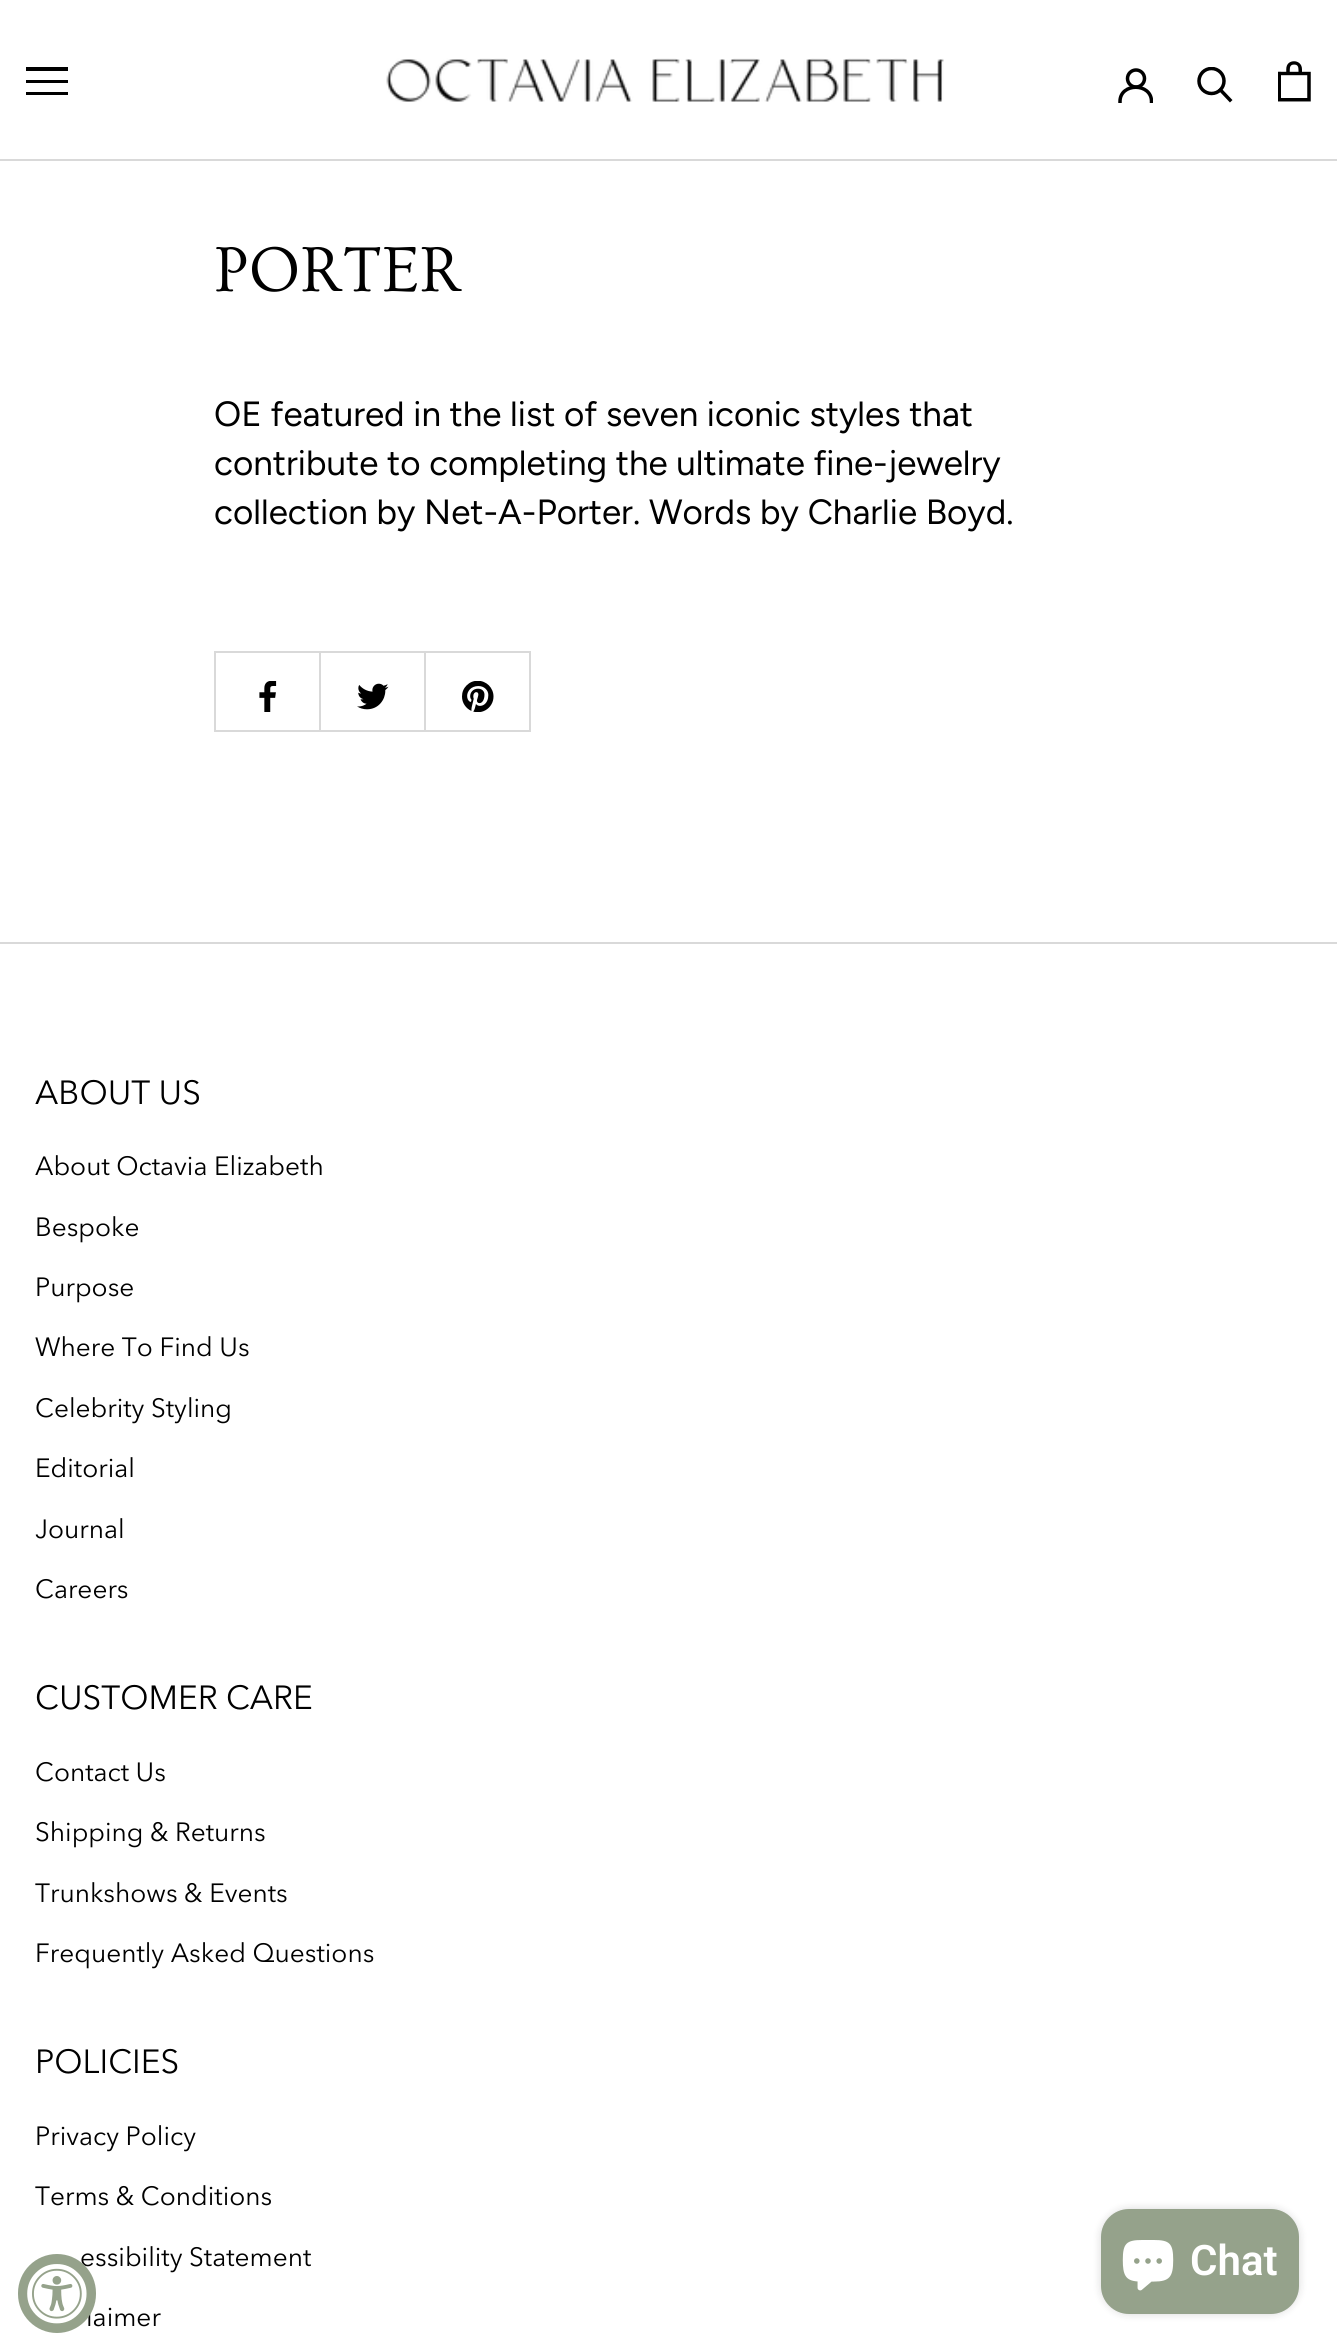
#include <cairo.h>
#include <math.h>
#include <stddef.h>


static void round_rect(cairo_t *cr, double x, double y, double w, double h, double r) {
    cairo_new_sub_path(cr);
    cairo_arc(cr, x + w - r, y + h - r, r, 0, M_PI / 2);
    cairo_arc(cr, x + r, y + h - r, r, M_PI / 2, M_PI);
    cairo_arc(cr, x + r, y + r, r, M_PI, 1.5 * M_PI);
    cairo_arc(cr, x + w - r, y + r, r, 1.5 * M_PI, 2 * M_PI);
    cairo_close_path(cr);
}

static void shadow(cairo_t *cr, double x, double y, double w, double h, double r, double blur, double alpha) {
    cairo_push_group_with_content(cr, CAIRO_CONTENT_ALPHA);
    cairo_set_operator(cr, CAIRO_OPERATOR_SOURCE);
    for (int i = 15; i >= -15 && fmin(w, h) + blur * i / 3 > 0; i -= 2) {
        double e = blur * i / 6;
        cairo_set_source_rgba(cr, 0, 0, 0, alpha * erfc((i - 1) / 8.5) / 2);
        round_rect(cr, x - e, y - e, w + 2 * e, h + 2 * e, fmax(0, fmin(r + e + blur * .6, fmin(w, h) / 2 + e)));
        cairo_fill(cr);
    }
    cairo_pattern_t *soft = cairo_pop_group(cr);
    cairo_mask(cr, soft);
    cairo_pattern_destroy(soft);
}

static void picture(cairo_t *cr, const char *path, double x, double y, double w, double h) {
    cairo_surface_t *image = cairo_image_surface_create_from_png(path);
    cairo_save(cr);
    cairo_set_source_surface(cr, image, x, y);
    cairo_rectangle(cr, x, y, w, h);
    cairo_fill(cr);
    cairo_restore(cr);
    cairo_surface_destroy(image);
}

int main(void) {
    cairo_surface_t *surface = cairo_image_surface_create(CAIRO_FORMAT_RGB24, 1337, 2350);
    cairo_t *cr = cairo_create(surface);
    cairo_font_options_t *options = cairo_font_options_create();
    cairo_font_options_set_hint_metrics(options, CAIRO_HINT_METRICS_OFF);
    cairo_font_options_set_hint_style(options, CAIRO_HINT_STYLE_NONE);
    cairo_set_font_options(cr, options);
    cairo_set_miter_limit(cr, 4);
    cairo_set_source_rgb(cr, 1, 1, 1);
    cairo_paint(cr);
    cairo_set_source_rgb(cr, 0.851, 0.851, 0.851);
    cairo_rectangle(cr, 0, 159, 1337, 2);
    cairo_fill(cr);
    cairo_set_source_rgb(cr, 0, 0, 0);
    cairo_new_path(cr);
    cairo_move_to(cr, 26, 95);
    cairo_line_to(cr, 26, 92);
    cairo_line_to(cr, 68, 92);
    cairo_line_to(cr, 68, 95);
    cairo_close_path(cr);
    cairo_move_to(cr, 26, 80);
    cairo_line_to(cr, 68, 80);
    cairo_line_to(cr, 68, 83);
    cairo_line_to(cr, 26, 83);
    cairo_close_path(cr);
    cairo_move_to(cr, 26, 67);
    cairo_line_to(cr, 68, 67);
    cairo_line_to(cr, 68, 71);
    cairo_line_to(cr, 26, 71);
    cairo_close_path(cr);
    cairo_fill(cr);
    picture(cr, "img1.png", 386, 58, 558, 44);
    cairo_save(cr);
    cairo_rectangle(cr, 1118, 68, 35, 35);
    cairo_clip(cr);
    cairo_new_path(cr);
    cairo_move_to(cr, 1120, 101.5);
    cairo_curve_to(cr, 1120, 82.5, 1151.5, 82.5, 1151.5, 101.5);
    cairo_set_line_width(cr, 3.5);
    cairo_set_line_cap(cr, CAIRO_LINE_CAP_SQUARE);
    cairo_stroke(cr);
    cairo_restore(cr);
    cairo_arc(cr, 1136, 78.5, 8.5, 0, 2 * M_PI);
    cairo_set_line_width(cr, 3.5);
    cairo_stroke(cr);
    cairo_new_path(cr);
    cairo_move_to(cr, 1230, 100);
    cairo_line_to(cr, 1220.5, 90);
    cairo_set_line_cap(cr, CAIRO_LINE_CAP_SQUARE);
    cairo_stroke(cr);
    cairo_save(cr);
    cairo_rectangle(cr, 1197, 67, 37, 36);
    cairo_clip(cr);
    cairo_arc(cr, 1211.5, 81, 12.5, 0, 2 * M_PI);
    cairo_set_line_cap(cr, CAIRO_LINE_CAP_BUTT);
    cairo_stroke(cr);
    cairo_restore(cr);
    picture(cr, "img2.png", 1278, 61, 33, 41);
    cairo_select_font_face(cr, "Ovo", CAIRO_FONT_SLANT_NORMAL, CAIRO_FONT_WEIGHT_NORMAL);
    cairo_set_font_size(cr, 66.5);
    cairo_move_to(cr, 214, 291);
    cairo_show_text(cr, "PORTER");
    cairo_select_font_face(cr, "Figtree", CAIRO_FONT_SLANT_NORMAL, CAIRO_FONT_WEIGHT_NORMAL);
    cairo_set_font_size(cr, 35);
    cairo_move_to(cr, 214, 426);
    cairo_show_text(cr, "OE featured in the list of seven iconic styles that");
    cairo_move_to(cr, 214, 475);
    cairo_show_text(cr, "contribute to completing the ultimate fine-jewelry");
    cairo_move_to(cr, 214, 524);
    cairo_show_text(cr, "collection by Net-A-Porter. Words by Charlie Boyd.");
    cairo_set_source_rgb(cr, 0.851, 0.851, 0.851);
    cairo_rectangle(cr, 424, 651, 106, 2);
    cairo_fill(cr);
    cairo_rectangle(cr, 529, 651, 2, 81);
    cairo_fill(cr);
    cairo_rectangle(cr, 424, 730, 106, 2);
    cairo_fill(cr);
    cairo_rectangle(cr, 424, 651, 2, 81);
    cairo_fill(cr);
    cairo_rectangle(cr, 319, 651, 106, 2);
    cairo_fill(cr);
    cairo_rectangle(cr, 319, 730, 106, 2);
    cairo_fill(cr);
    cairo_rectangle(cr, 319, 651, 2, 81);
    cairo_fill(cr);
    cairo_rectangle(cr, 214, 651, 106, 2);
    cairo_fill(cr);
    cairo_rectangle(cr, 214, 730, 106, 2);
    cairo_fill(cr);
    cairo_rectangle(cr, 214, 651, 2, 81);
    cairo_fill(cr);
    picture(cr, "img3.png", 259, 681, 18, 31);
    picture(cr, "img4.png", 357, 683, 32, 27);
    picture(cr, "img5.png", 462, 681, 32, 31);
    cairo_rectangle(cr, 0, 942, 1337, 2);
    cairo_fill(cr);
    cairo_select_font_face(cr, "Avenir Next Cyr", CAIRO_FONT_SLANT_NORMAL, CAIRO_FONT_WEIGHT_NORMAL);
    cairo_set_font_size(cr, 33.25);
    cairo_set_source_rgb(cr, 0, 0, 0);
    cairo_move_to(cr, 35, 1104);
    cairo_show_text(cr, "ABOUT US");
    cairo_set_font_size(cr, 26.25);
    cairo_move_to(cr, 35, 1175);
    cairo_show_text(cr, "About Octavia Elizabeth");
    cairo_move_to(cr, 35, 1236);
    cairo_show_text(cr, "Bespoke");
    cairo_move_to(cr, 35, 1296);
    cairo_show_text(cr, "Purpose");
    cairo_move_to(cr, 35, 1356);
    cairo_show_text(cr, "Where To Find Us");
    cairo_move_to(cr, 35, 1417);
    cairo_show_text(cr, "Celebrity Styling");
    cairo_move_to(cr, 35, 1477);
    cairo_show_text(cr, "Editorial");
    cairo_move_to(cr, 35, 1538);
    cairo_show_text(cr, "Journal");
    cairo_move_to(cr, 35, 1598);
    cairo_show_text(cr, "Careers");
    cairo_set_font_size(cr, 33.25);
    cairo_move_to(cr, 35, 1709);
    cairo_show_text(cr, "CUSTOMER CARE");
    cairo_set_font_size(cr, 26.25);
    cairo_move_to(cr, 35, 1781);
    cairo_show_text(cr, "Contact Us");
    cairo_move_to(cr, 35, 1841);
    cairo_show_text(cr, "Shipping & Returns");
    cairo_move_to(cr, 35, 1902);
    cairo_show_text(cr, "Trunkshows & Events");
    cairo_move_to(cr, 35, 1962);
    cairo_show_text(cr, "Frequently Asked Questions");
    cairo_set_font_size(cr, 33.25);
    cairo_move_to(cr, 35, 2073);
    cairo_show_text(cr, "POLICIES");
    cairo_set_font_size(cr, 26.25);
    cairo_move_to(cr, 35, 2145);
    cairo_show_text(cr, "Privacy Policy");
    cairo_move_to(cr, 35, 2205);
    cairo_show_text(cr, "Terms & Conditions");
    cairo_move_to(cr, 80, 2266);
    cairo_show_text(cr, "essibility Statement");
    cairo_move_to(cr, 86, 2326);
    cairo_show_text(cr, "laimer");
    cairo_set_source_rgb(cr, 0, 0, 0);
    shadow(cr, 1101, 2209, 198, 105, 28, 4.5, 0.15);
    cairo_set_source_rgb(cr, 0.584, 0.635, 0.545);
    round_rect(cr, 1101, 2209, 198, 105, 28);
    cairo_fill(cr);
    picture(cr, "img6.png", 1122, 2240, 52, 51);
    cairo_select_font_face(cr, "Roboto SemiBold", CAIRO_FONT_SLANT_NORMAL, CAIRO_FONT_WEIGHT_NORMAL);
    cairo_set_font_size(cr, 42);
    cairo_set_source_rgb(cr, 1, 1, 1);
    cairo_move_to(cr, 1190, 2275);
    cairo_show_text(cr, "Chat");
    cairo_set_source_rgb(cr, 0.584, 0.635, 0.545);
    round_rect(cr, 18, 2254, 78, 79, 39);
    cairo_fill(cr);
    picture(cr, "img7.png", 27, 2264, 60, 60);
    cairo_surface_write_to_png(surface, "page.png");
    cairo_font_options_destroy(options);
    cairo_destroy(cr);
    cairo_surface_destroy(surface);
    return 0;
}
